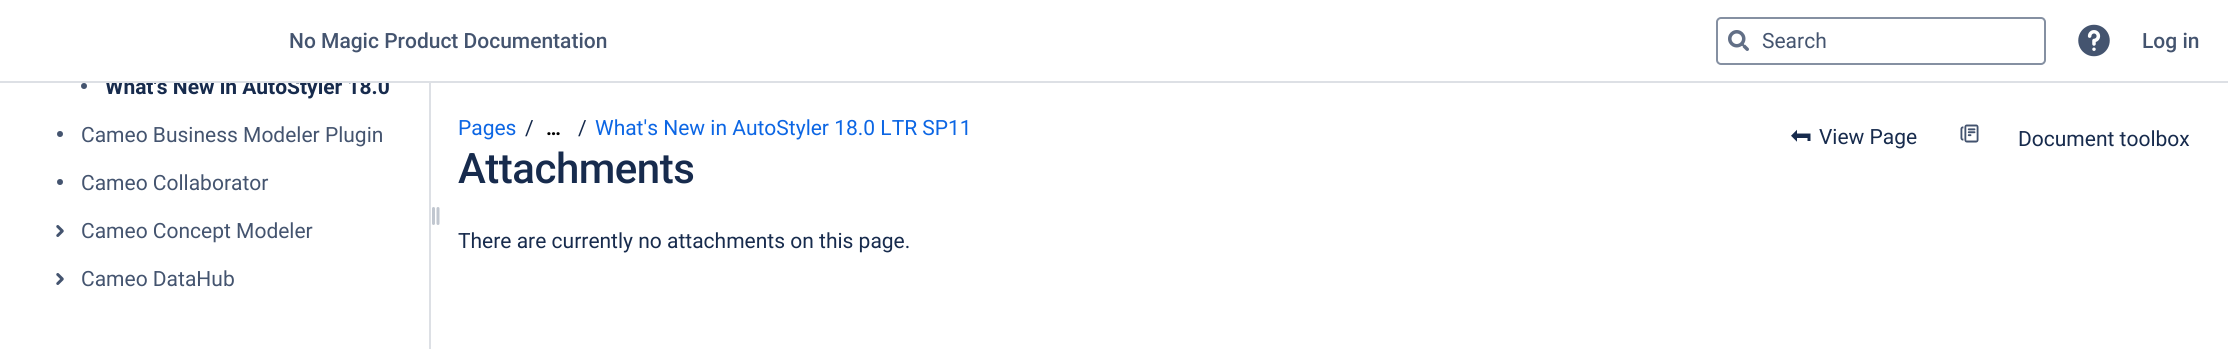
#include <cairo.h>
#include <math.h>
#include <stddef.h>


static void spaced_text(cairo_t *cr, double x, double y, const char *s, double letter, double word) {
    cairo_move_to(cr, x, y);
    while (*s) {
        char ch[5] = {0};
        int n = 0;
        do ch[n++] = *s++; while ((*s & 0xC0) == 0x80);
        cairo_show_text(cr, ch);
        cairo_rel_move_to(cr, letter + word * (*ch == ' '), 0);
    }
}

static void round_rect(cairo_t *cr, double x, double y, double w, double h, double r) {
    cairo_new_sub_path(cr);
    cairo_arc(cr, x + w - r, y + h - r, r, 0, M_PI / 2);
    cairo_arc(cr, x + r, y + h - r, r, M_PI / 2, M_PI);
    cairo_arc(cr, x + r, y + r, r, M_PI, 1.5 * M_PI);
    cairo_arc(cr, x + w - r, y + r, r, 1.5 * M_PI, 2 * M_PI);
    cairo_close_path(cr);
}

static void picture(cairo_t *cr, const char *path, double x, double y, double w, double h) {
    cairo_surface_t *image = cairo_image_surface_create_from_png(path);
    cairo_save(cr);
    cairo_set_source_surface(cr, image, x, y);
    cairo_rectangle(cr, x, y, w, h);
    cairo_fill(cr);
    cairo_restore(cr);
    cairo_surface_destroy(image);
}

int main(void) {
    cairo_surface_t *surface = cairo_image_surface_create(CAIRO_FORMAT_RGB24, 2228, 349);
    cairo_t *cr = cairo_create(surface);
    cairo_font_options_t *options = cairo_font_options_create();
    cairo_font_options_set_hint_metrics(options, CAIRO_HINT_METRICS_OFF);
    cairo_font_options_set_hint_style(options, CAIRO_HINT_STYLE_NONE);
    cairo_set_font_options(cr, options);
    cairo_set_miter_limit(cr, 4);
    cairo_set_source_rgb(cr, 1, 1, 1);
    cairo_paint(cr);
    cairo_set_source_rgb(cr, 0.867, 0.878, 0.898);
    cairo_rectangle(cr, 0, 81, 2228, 2);
    cairo_fill(cr);
    cairo_select_font_face(cr, "Roboto Medium", CAIRO_FONT_SLANT_NORMAL, CAIRO_FONT_WEIGHT_NORMAL);
    cairo_set_font_size(cr, 21);
    cairo_set_source_rgb(cr, 0.267, 0.329, 0.435);
    cairo_move_to(cr, 289, 48);
    cairo_show_text(cr, "No Magic Product Documentation");
    round_rect(cr, 1717, 18, 328, 46, 4);
    cairo_set_source_rgb(cr, 0.522, 0.565, 0.635);
    cairo_stroke(cr);
    picture(cr, "img1.png", 1728, 30, 21, 21);
    cairo_select_font_face(cr, "Roboto", CAIRO_FONT_SLANT_NORMAL, CAIRO_FONT_WEIGHT_NORMAL);
    cairo_set_source_rgb(cr, 0.267, 0.329, 0.435);
    cairo_move_to(cr, 1762, 48);
    cairo_show_text(cr, "Search");
    picture(cr, "img2.png", 2078, 24, 32, 33);
    cairo_select_font_face(cr, "Roboto Medium", CAIRO_FONT_SLANT_NORMAL, CAIRO_FONT_WEIGHT_NORMAL);
    cairo_move_to(cr, 2142, 48);
    cairo_show_text(cr, "Log in");
    cairo_new_path(cr);
    cairo_arc(cr, 84, 86, 3, 0, 2 * M_PI);
    cairo_fill(cr);
    cairo_save(cr);
    cairo_rectangle(cr, 102, 83, 293, 22);
    cairo_clip(cr);
    cairo_select_font_face(cr, "Roboto", CAIRO_FONT_SLANT_NORMAL, CAIRO_FONT_WEIGHT_BOLD);
    cairo_set_source_rgb(cr, 0.09, 0.169, 0.302);
    cairo_move_to(cr, 105, 94);
    cairo_show_text(cr, "What's New in AutoStyler 18.0");
    cairo_restore(cr);
    cairo_new_path(cr);
    cairo_arc(cr, 60, 134, 3, 0, 2 * M_PI);
    cairo_fill(cr);
    cairo_select_font_face(cr, "Roboto", CAIRO_FONT_SLANT_NORMAL, CAIRO_FONT_WEIGHT_NORMAL);
    cairo_move_to(cr, 81, 142);
    cairo_show_text(cr, "Cameo Business Modeler Plugin");
    cairo_new_path(cr);
    cairo_arc(cr, 60, 182, 3, 0, 2 * M_PI);
    cairo_fill(cr);
    cairo_move_to(cr, 81, 190);
    cairo_show_text(cr, "Cameo Collaborator");
    picture(cr, "img3.png", 56, 225, 8, 12);
    cairo_move_to(cr, 81, 238);
    cairo_show_text(cr, "Cameo Concept Modeler");
    picture(cr, "img3.png", 56, 273, 8, 12);
    cairo_move_to(cr, 81, 286);
    cairo_show_text(cr, "Cameo DataHub");
    picture(cr, "img4.png", 432, 207, 8, 18);
    cairo_set_source_rgb(cr, 0.867, 0.878, 0.898);
    cairo_rectangle(cr, 429, 83, 2, 266);
    cairo_fill(cr);
    cairo_set_source_rgb(cr, 0.047, 0.4, 0.894);
    cairo_move_to(cr, 458, 135);
    cairo_show_text(cr, "Pages");
    cairo_set_source_rgb(cr, 0.09, 0.169, 0.302);
    cairo_move_to(cr, 525, 135);
    cairo_show_text(cr, "/");
    cairo_select_font_face(cr, "Roboto", CAIRO_FONT_SLANT_NORMAL, CAIRO_FONT_WEIGHT_BOLD);
    cairo_set_font_size(cr, 20);
    cairo_set_source_rgb(cr, 0, 0, 0);
    cairo_move_to(cr, 546, 135);
    cairo_show_text(cr, "…");
    cairo_select_font_face(cr, "Roboto", CAIRO_FONT_SLANT_NORMAL, CAIRO_FONT_WEIGHT_NORMAL);
    cairo_set_font_size(cr, 21);
    cairo_set_source_rgb(cr, 0.09, 0.169, 0.302);
    cairo_move_to(cr, 578, 135);
    cairo_show_text(cr, "/");
    cairo_set_source_rgb(cr, 0.047, 0.4, 0.894);
    cairo_move_to(cr, 595, 135);
    cairo_show_text(cr, "What's New in AutoStyler 18.0 LTR SP11");
    cairo_select_font_face(cr, "Roboto Medium", CAIRO_FONT_SLANT_NORMAL, CAIRO_FONT_WEIGHT_NORMAL);
    cairo_set_font_size(cr, 42);
    cairo_set_source_rgb(cr, 0.09, 0.169, 0.302);
    spaced_text(cr, 458, 183, "Attachments", -0.5, 0);
    picture(cr, "img5.png", 1791, 129, 20, 13);
    cairo_select_font_face(cr, "Roboto", CAIRO_FONT_SLANT_NORMAL, CAIRO_FONT_WEIGHT_NORMAL);
    cairo_set_font_size(cr, 21);
    cairo_move_to(cr, 1819, 144);
    cairo_show_text(cr, "View Page");
    picture(cr, "img6.png", 1960, 124, 19, 19);
    cairo_move_to(cr, 2018, 146);
    cairo_show_text(cr, "Document toolbox");
    cairo_move_to(cr, 458, 248);
    cairo_show_text(cr, "There are currently no attachments on this page.");
    cairo_surface_write_to_png(surface, "page.png");
    cairo_font_options_destroy(options);
    cairo_destroy(cr);
    cairo_surface_destroy(surface);
    return 0;
}
